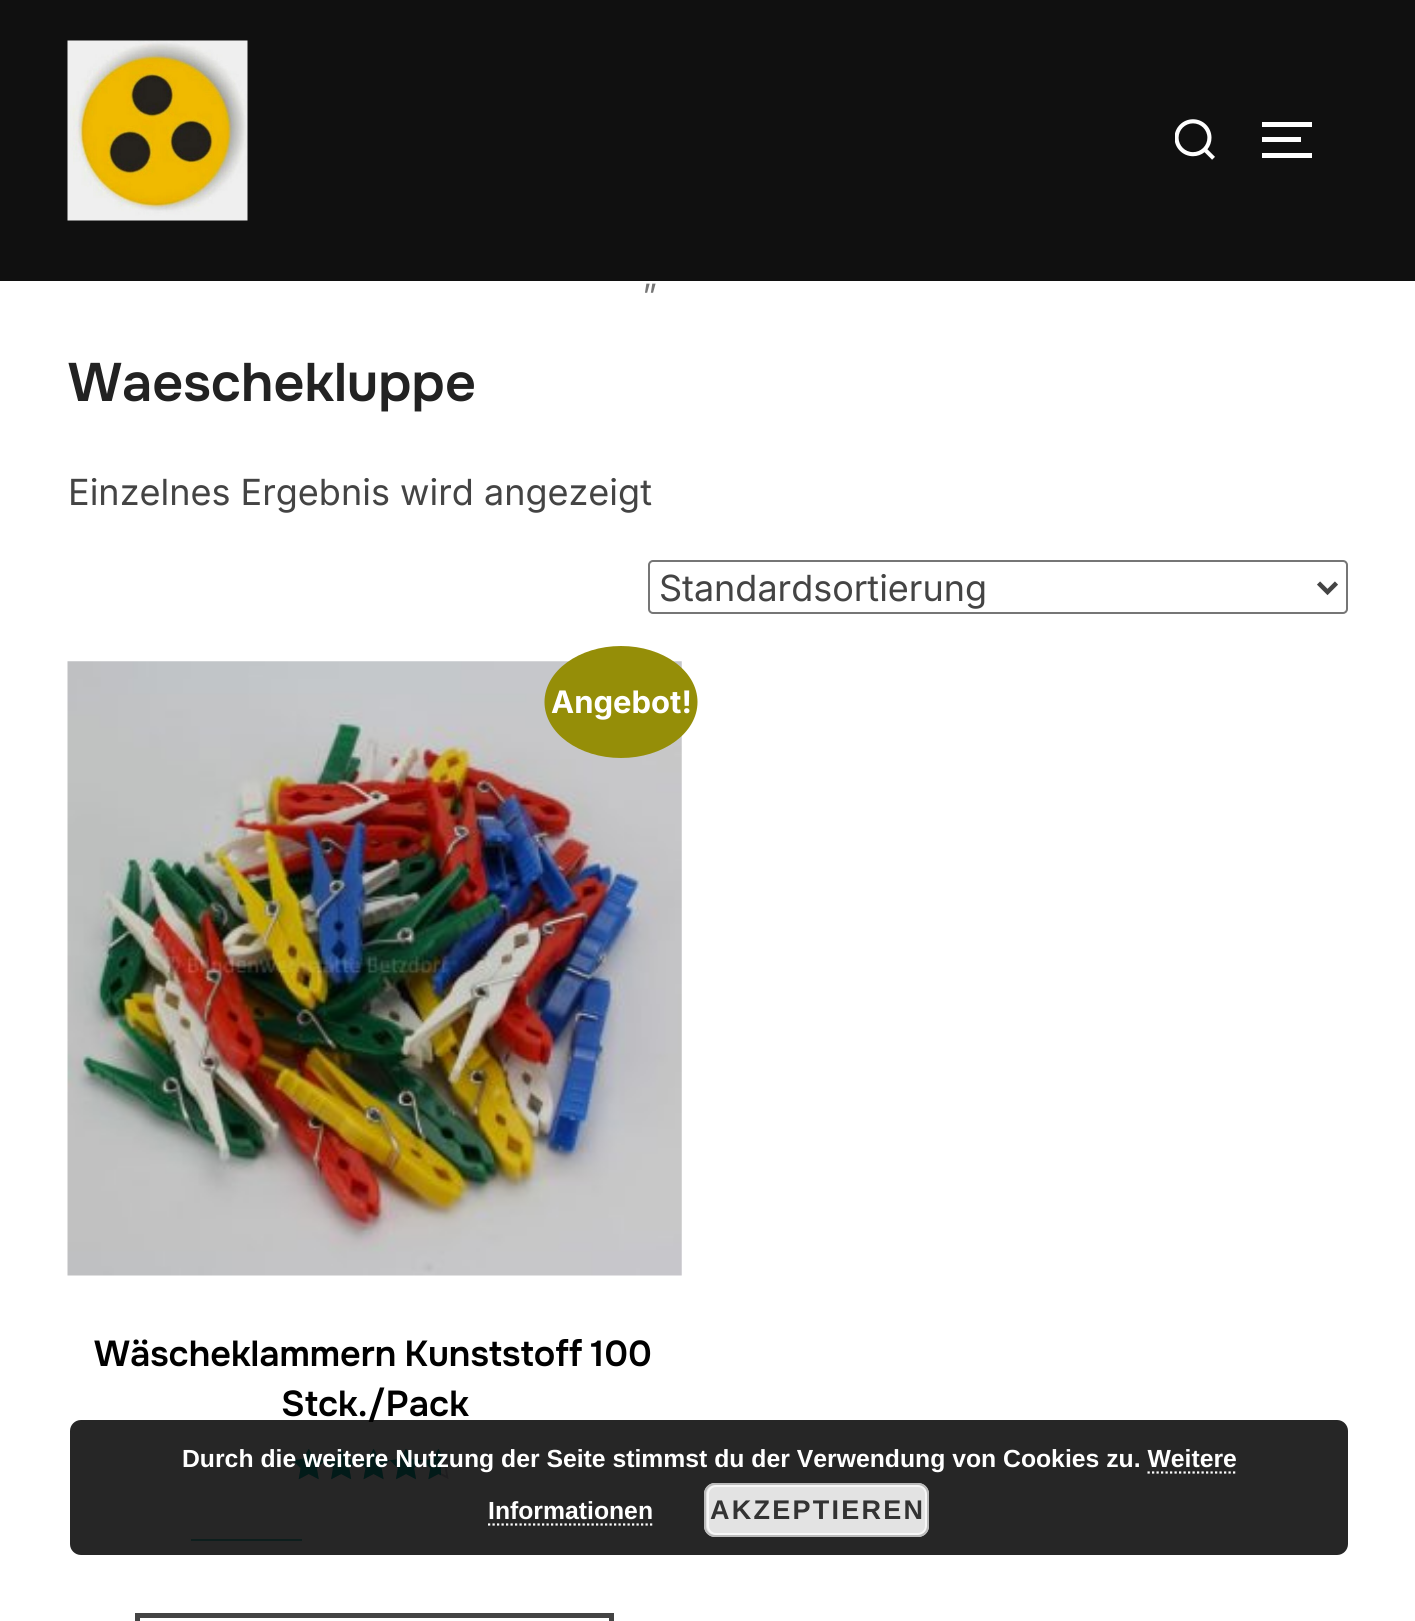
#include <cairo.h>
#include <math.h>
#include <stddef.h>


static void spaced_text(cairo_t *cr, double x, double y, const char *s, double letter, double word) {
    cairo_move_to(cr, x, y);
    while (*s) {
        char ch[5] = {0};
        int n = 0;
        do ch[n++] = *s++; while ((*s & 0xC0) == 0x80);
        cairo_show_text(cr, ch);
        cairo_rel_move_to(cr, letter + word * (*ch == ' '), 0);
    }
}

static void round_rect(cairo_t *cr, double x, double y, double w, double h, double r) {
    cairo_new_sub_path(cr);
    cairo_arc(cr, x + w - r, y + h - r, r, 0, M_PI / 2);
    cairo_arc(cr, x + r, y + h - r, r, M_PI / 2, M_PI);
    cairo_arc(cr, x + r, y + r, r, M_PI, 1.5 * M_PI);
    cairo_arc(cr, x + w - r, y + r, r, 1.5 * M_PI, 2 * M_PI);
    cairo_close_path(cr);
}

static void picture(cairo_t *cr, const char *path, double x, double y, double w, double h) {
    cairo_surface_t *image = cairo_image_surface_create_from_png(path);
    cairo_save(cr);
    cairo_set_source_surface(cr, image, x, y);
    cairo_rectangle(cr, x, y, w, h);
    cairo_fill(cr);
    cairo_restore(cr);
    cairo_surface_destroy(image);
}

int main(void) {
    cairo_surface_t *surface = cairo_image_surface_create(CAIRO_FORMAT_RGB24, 1415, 1621);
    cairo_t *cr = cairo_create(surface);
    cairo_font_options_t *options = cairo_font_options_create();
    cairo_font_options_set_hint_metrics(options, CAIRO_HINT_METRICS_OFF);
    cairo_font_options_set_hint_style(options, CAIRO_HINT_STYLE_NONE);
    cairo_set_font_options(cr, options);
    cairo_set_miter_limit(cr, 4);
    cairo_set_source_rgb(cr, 1, 1, 1);
    cairo_paint(cr);
    cairo_set_source_rgb(cr, 0.063, 0.063, 0.063);
    cairo_rectangle(cr, 0, 0, 1415, 281);
    cairo_fill(cr);
    picture(cr, "img1.png", 67, 40, 181, 181);
    picture(cr, "img2.png", 1175, 119, 40, 41);
    cairo_set_source_rgb(cr, 1, 1, 1);
    cairo_rectangle(cr, 1262, 122, 50, 5);
    cairo_fill(cr);
    cairo_rectangle(cr, 1262, 137, 39, 5);
    cairo_fill(cr);
    cairo_rectangle(cr, 1262, 153, 50, 5);
    cairo_fill(cr);
    cairo_select_font_face(cr, "Inter", CAIRO_FONT_SLANT_NORMAL, CAIRO_FONT_WEIGHT_NORMAL);
    cairo_set_font_size(cr, 33);
    cairo_set_source_rgb(cr, 0.463, 0.463, 0.463);
    cairo_move_to(cr, 643, 287);
    cairo_show_text(cr, "„");
    cairo_select_font_face(cr, "Onest SemiBold", CAIRO_FONT_SLANT_NORMAL, CAIRO_FONT_WEIGHT_NORMAL);
    cairo_set_font_size(cr, 54);
    cairo_set_source_rgb(cr, 0.133, 0.133, 0.133);
    cairo_move_to(cr, 68, 401);
    cairo_show_text(cr, "Waeschekluppe");
    cairo_select_font_face(cr, "Inter", CAIRO_FONT_SLANT_NORMAL, CAIRO_FONT_WEIGHT_NORMAL);
    cairo_set_font_size(cr, 36);
    cairo_set_source_rgb(cr, 0.267, 0.267, 0.267);
    cairo_move_to(cr, 68, 505);
    cairo_show_text(cr, "Einzelnes Ergebnis wird angezeigt");
    round_rect(cr, 649, 561, 698, 52, 4);
    cairo_set_source_rgb(cr, 0.463, 0.463, 0.463);
    cairo_stroke(cr);
    cairo_new_path(cr);
    cairo_move_to(cr, 1318.5, 583);
    cairo_line_to(cr, 1327.5, 592);
    cairo_line_to(cr, 1336.5, 583);
    cairo_set_source_rgb(cr, 0.267, 0.267, 0.267);
    cairo_set_line_width(cr, 4.5);
    cairo_stroke(cr);
    cairo_move_to(cr, 659, 601);
    cairo_show_text(cr, "Standardsortierung");
    picture(cr, "img3.png", 67, 661, 615, 615);
    cairo_set_source_rgb(cr, 0.584, 0.557, 0.035);
    cairo_new_path(cr);
    cairo_move_to(cr, 621, 646);
    cairo_curve_to(cr, 663, 646, 697.5, 671, 697.5, 702);
    cairo_curve_to(cr, 697.5, 733, 663, 758, 621, 758);
    cairo_curve_to(cr, 579, 758, 544.5, 733, 544.5, 702);
    cairo_curve_to(cr, 544.5, 671, 579, 646, 621, 646);
    cairo_close_path(cr);
    cairo_fill(cr);
    cairo_select_font_face(cr, "Inter", CAIRO_FONT_SLANT_NORMAL, CAIRO_FONT_WEIGHT_BOLD);
    cairo_set_font_size(cr, 31);
    cairo_set_source_rgb(cr, 1, 1, 1);
    cairo_move_to(cr, 551, 713);
    cairo_show_text(cr, "Angebot!");
    cairo_select_font_face(cr, "Onest SemiBold", CAIRO_FONT_SLANT_NORMAL, CAIRO_FONT_WEIGHT_NORMAL);
    cairo_set_font_size(cr, 36);
    cairo_set_source_rgb(cr, 0, 0, 0);
    spaced_text(cr, 94, 1366, "Wäscheklammern Kunststoff 100", 0, -2);
    cairo_move_to(cr, 281, 1416);
    cairo_show_text(cr, "Stck./Pack");
    picture(cr, "img4.png", 293, 1449, 162, 30);
    picture(cr, "img5.png", 293, 1449, 148, 31);
    cairo_set_source_rgb(cr, 0.329, 0.796, 0.769);
    cairo_rectangle(cr, 191, 1539, 111, 2);
    cairo_fill(cr);
    cairo_rectangle(cr, 137.5, 1615.5, 474, 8);
    cairo_set_source_rgb(cr, 0.267, 0.267, 0.267);
    cairo_set_line_width(cr, 5);
    cairo_stroke(cr);
    cairo_set_source_rgba(cr, 0, 0, 0, 0.85);
    round_rect(cr, 70, 1420, 1278, 135, 11);
    cairo_fill(cr);
    cairo_select_font_face(cr, "Liberation Sans", CAIRO_FONT_SLANT_NORMAL, CAIRO_FONT_WEIGHT_BOLD);
    cairo_set_font_size(cr, 24.75);
    cairo_set_source_rgb(cr, 1, 1, 1);
    cairo_move_to(cr, 182, 1467);
    cairo_show_text(cr, "Durch die weitere Nutzung der Seite stimmst du der Verwendung von Cookies zu. Weitere");
    cairo_move_to(cr, 488, 1519);
    cairo_show_text(cr, "Informationen");
    cairo_new_path(cr);
    cairo_move_to(cr, 1147.5, 1472.5);
    cairo_line_to(cr, 1237.5, 1472.5);
    cairo_set_line_width(cr, 2.2);
    cairo_set_dash(cr, (double[]){2.25, 2.25}, 2, 0);
    cairo_stroke(cr);
    cairo_new_path(cr);
    cairo_move_to(cr, 488, 1524.5);
    cairo_line_to(cr, 652.5, 1524.5);
    cairo_stroke(cr);
    cairo_set_source_rgb(cr, 0.89, 0.89, 0.89);
    round_rect(cr, 704, 1483, 225, 54, 11);
    cairo_fill(cr);
    round_rect(cr, 708, 1486, 218, 48, 8);
    cairo_set_source_rgb(cr, 0.965, 0.965, 0.965);
    cairo_set_line_width(cr, 2);
    cairo_set_dash(cr, NULL, 0, 0);
    cairo_stroke(cr);
    round_rect(cr, 705, 1484, 223, 52, 10);
    cairo_set_source_rgb(cr, 0.733, 0.733, 0.733);
    cairo_stroke(cr);
    cairo_set_font_size(cr, 27);
    cairo_set_source_rgb(cr, 0.2, 0.2, 0.2);
    spaced_text(cr, 710, 1519, "AKZEPTIEREN", 2.25, 0);
    cairo_surface_write_to_png(surface, "page.png");
    cairo_font_options_destroy(options);
    cairo_destroy(cr);
    cairo_surface_destroy(surface);
    return 0;
}
